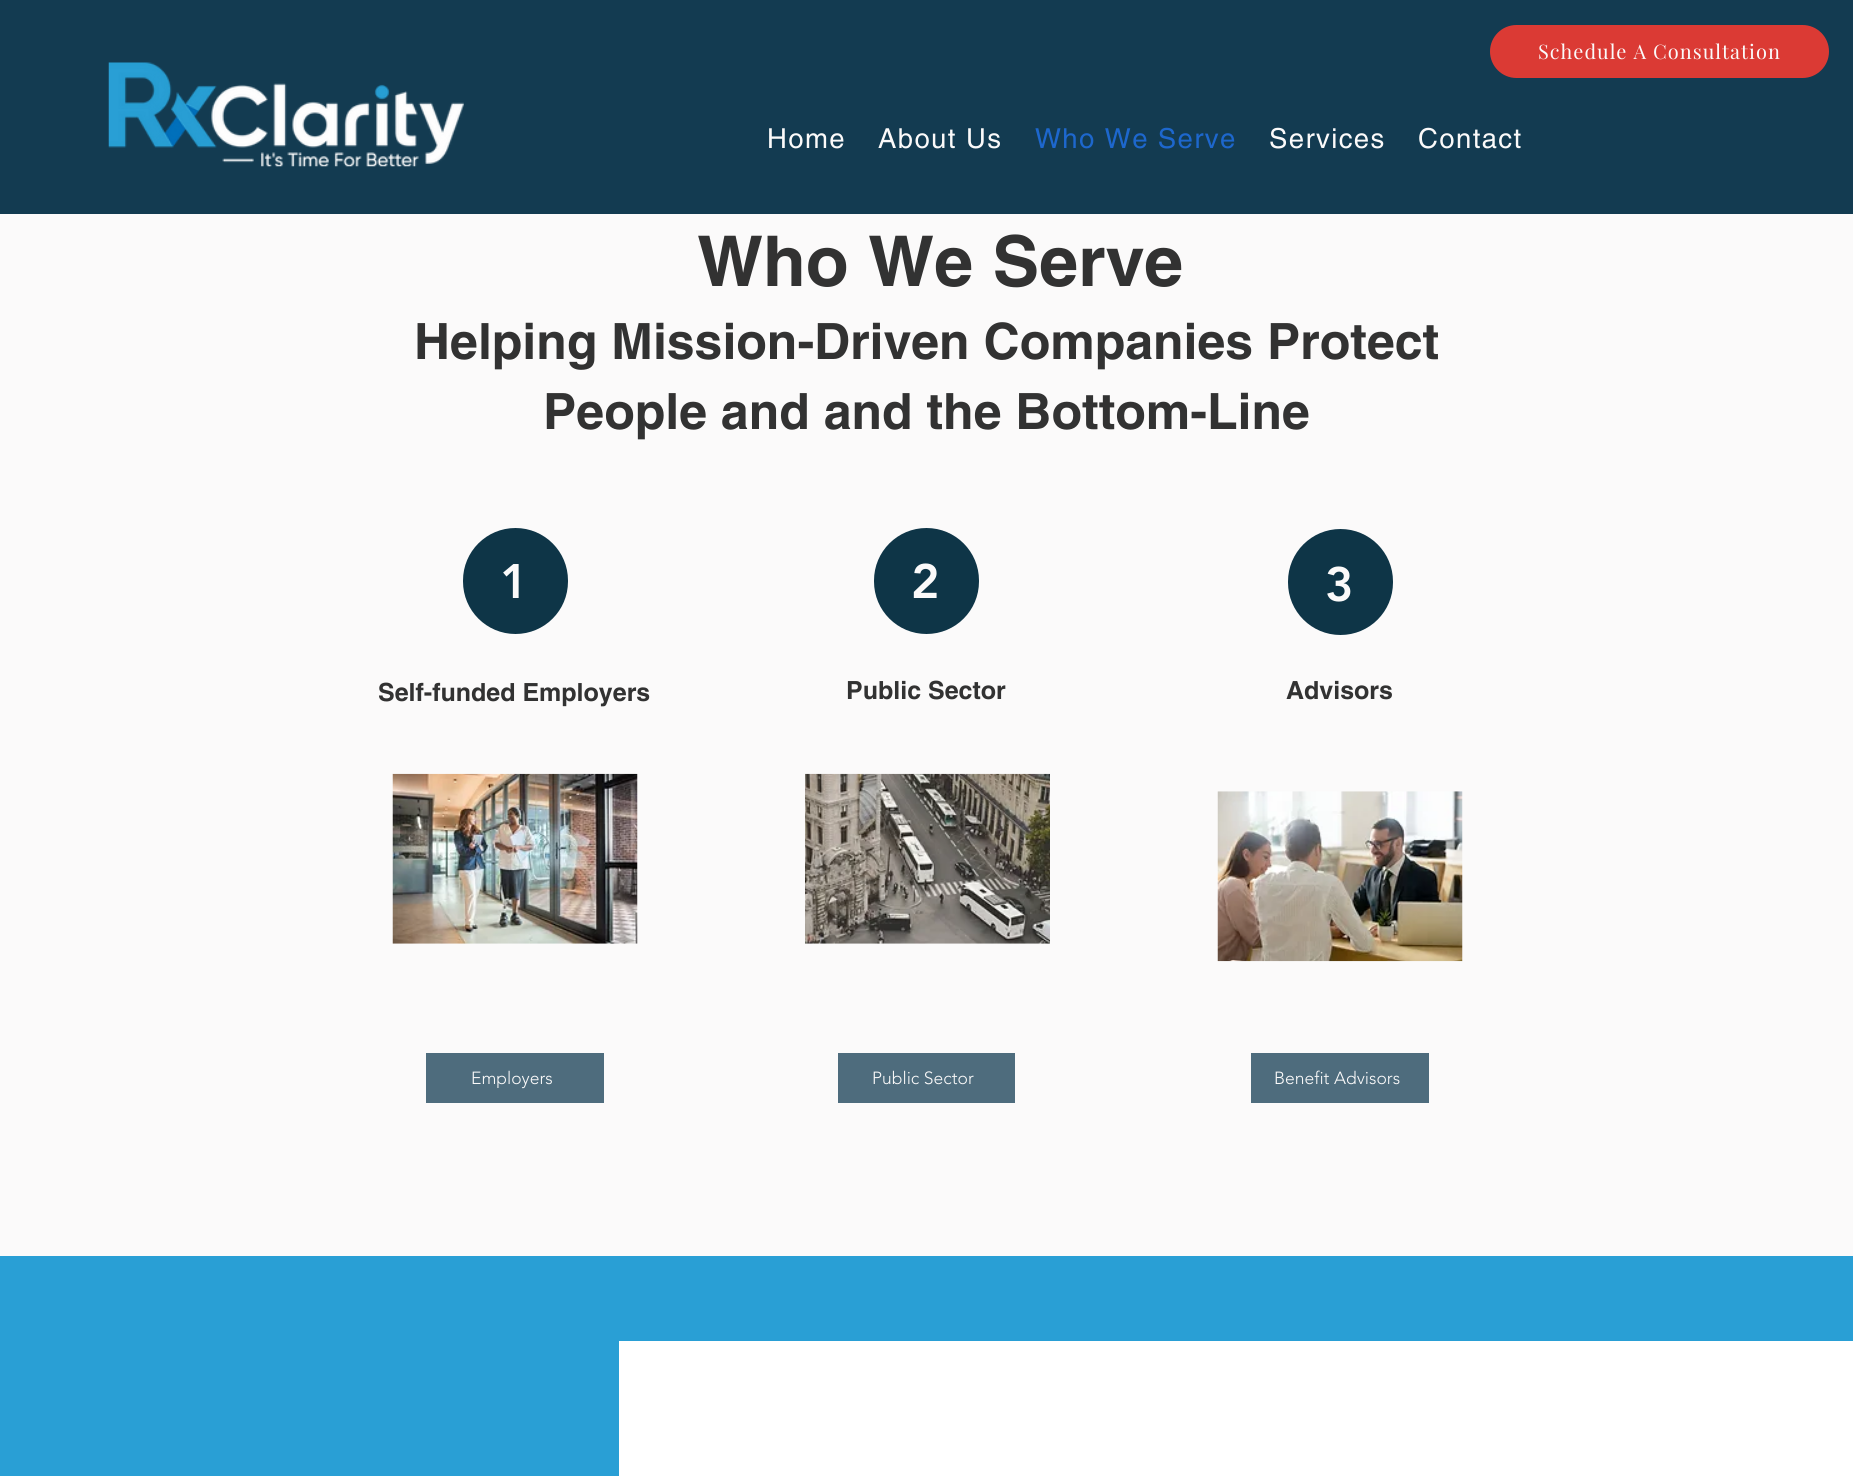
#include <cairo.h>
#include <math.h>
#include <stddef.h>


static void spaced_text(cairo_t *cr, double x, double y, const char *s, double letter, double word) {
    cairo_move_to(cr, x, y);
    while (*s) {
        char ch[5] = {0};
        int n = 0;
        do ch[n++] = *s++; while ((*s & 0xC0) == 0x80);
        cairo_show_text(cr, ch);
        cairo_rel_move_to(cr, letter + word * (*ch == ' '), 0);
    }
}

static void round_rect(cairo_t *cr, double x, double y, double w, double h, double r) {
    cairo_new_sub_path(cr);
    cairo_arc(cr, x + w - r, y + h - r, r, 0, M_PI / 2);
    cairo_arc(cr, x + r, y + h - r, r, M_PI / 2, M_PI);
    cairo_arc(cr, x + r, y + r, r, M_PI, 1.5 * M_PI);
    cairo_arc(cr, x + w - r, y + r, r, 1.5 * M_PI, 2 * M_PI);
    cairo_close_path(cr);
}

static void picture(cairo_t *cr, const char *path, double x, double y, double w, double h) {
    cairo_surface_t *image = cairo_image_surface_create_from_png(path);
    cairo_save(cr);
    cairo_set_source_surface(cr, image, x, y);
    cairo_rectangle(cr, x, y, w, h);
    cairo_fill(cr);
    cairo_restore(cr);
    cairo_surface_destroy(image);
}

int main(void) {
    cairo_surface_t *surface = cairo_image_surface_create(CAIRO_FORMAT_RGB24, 1853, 1476);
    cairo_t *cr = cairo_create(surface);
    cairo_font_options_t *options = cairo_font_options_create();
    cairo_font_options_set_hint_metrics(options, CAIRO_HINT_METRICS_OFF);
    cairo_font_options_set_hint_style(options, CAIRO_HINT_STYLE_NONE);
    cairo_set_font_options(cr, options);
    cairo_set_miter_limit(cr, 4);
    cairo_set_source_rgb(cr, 0.984, 0.98, 0.98);
    cairo_paint(cr);
    cairo_set_source_rgb(cr, 0.078, 0.231, 0.318);
    cairo_rectangle(cr, 0, 0, 1853, 214);
    cairo_fill(cr);
    cairo_set_source_rgb(cr, 0.859, 0.227, 0.204);
    round_rect(cr, 1490, 25, 339, 53, 26.5);
    cairo_fill(cr);
    cairo_select_font_face(cr, "Playfair Display", CAIRO_FONT_SLANT_NORMAL, CAIRO_FONT_WEIGHT_NORMAL);
    cairo_set_font_size(cr, 20);
    cairo_set_source_rgb(cr, 0.984, 0.98, 0.98);
    spaced_text(cr, 1538, 59, "Schedule A Consultation", 1, 0);
    picture(cr, "img1.png", 108, 62, 356, 105);
    cairo_select_font_face(cr, "helvetica", CAIRO_FONT_SLANT_NORMAL, CAIRO_FONT_WEIGHT_NORMAL);
    cairo_set_font_size(cr, 27.5);
    spaced_text(cr, 767, 148, "Home", 1.4, 0);
    spaced_text(cr, 878, 148, "About Us", 1.4, 0);
    cairo_set_source_rgb(cr, 0.114, 0.404, 0.804);
    spaced_text(cr, 1035, 148, "Who We Serve", 1.4, 0);
    cairo_set_source_rgb(cr, 0.984, 0.98, 0.98);
    spaced_text(cr, 1269, 148, "Services", 1.4, 0);
    spaced_text(cr, 1418, 148, "Contact", 1.4, 0);
    cairo_select_font_face(cr, "helvetica", CAIRO_FONT_SLANT_NORMAL, CAIRO_FONT_WEIGHT_BOLD);
    cairo_set_font_size(cr, 70);
    cairo_set_source_rgb(cr, 0.196, 0.196, 0.196);
    cairo_move_to(cr, 697, 286);
    cairo_show_text(cr, "Who We Serve");
    cairo_set_font_size(cr, 50);
    cairo_move_to(cr, 414, 359);
    cairo_show_text(cr, "Helping Mission-Driven Companies Protect");
    cairo_move_to(cr, 543, 429);
    cairo_show_text(cr, "People and and the Bottom-Line");
    cairo_set_source_rgb(cr, 0.055, 0.208, 0.278);
    round_rect(cr, 463, 528, 105, 106, 52.5);
    cairo_fill(cr);
    cairo_select_font_face(cr, "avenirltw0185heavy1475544 Black", CAIRO_FONT_SLANT_NORMAL, CAIRO_FONT_WEIGHT_NORMAL);
    cairo_set_font_size(cr, 48);
    cairo_set_source_rgb(cr, 0.984, 0.98, 0.98);
    cairo_move_to(cr, 500, 598);
    cairo_show_text(cr, "1");
    cairo_select_font_face(cr, "helvetica", CAIRO_FONT_SLANT_NORMAL, CAIRO_FONT_WEIGHT_BOLD);
    cairo_set_font_size(cr, 25);
    cairo_set_source_rgb(cr, 0.196, 0.196, 0.196);
    cairo_move_to(cr, 378, 701);
    cairo_show_text(cr, "Self-funded Employers");
    picture(cr, "img2.png", 392, 773, 246, 171);
    cairo_set_source_rgb(cr, 0.306, 0.424, 0.49);
    cairo_rectangle(cr, 426, 1053, 178, 50);
    cairo_fill(cr);
    cairo_select_font_face(cr, "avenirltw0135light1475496 Light", CAIRO_FONT_SLANT_NORMAL, CAIRO_FONT_WEIGHT_NORMAL);
    cairo_set_font_size(cr, 17.5);
    cairo_set_source_rgb(cr, 0.984, 0.98, 0.98);
    cairo_move_to(cr, 471, 1084);
    cairo_show_text(cr, "Employers");
    cairo_set_source_rgb(cr, 0.055, 0.208, 0.278);
    round_rect(cr, 874, 528, 105, 106, 52.5);
    cairo_fill(cr);
    cairo_select_font_face(cr, "avenirltw0185heavy1475544 Black", CAIRO_FONT_SLANT_NORMAL, CAIRO_FONT_WEIGHT_NORMAL);
    cairo_set_font_size(cr, 48);
    cairo_set_source_rgb(cr, 0.984, 0.98, 0.98);
    cairo_move_to(cr, 911, 598);
    cairo_show_text(cr, "2");
    cairo_select_font_face(cr, "helvetica", CAIRO_FONT_SLANT_NORMAL, CAIRO_FONT_WEIGHT_BOLD);
    cairo_set_font_size(cr, 25);
    cairo_set_source_rgb(cr, 0.196, 0.196, 0.196);
    cairo_move_to(cr, 846, 699);
    cairo_show_text(cr, "Public Sector");
    picture(cr, "img3.png", 805, 773, 245, 171);
    cairo_set_source_rgb(cr, 0.306, 0.424, 0.49);
    cairo_rectangle(cr, 838, 1053, 177, 50);
    cairo_fill(cr);
    cairo_select_font_face(cr, "avenirltw0135light1475496 Light", CAIRO_FONT_SLANT_NORMAL, CAIRO_FONT_WEIGHT_NORMAL);
    cairo_set_font_size(cr, 17.5);
    cairo_set_source_rgb(cr, 0.984, 0.98, 0.98);
    cairo_move_to(cr, 872, 1084);
    cairo_show_text(cr, "Public Sector");
    cairo_set_source_rgb(cr, 0.055, 0.208, 0.278);
    round_rect(cr, 1288, 529, 105, 106, 52.5);
    cairo_fill(cr);
    cairo_select_font_face(cr, "avenirltw0185heavy1475544 Black", CAIRO_FONT_SLANT_NORMAL, CAIRO_FONT_WEIGHT_NORMAL);
    cairo_set_font_size(cr, 48);
    cairo_set_source_rgb(cr, 0.984, 0.98, 0.98);
    cairo_move_to(cr, 1325, 601);
    cairo_show_text(cr, "3");
    cairo_select_font_face(cr, "helvetica", CAIRO_FONT_SLANT_NORMAL, CAIRO_FONT_WEIGHT_BOLD);
    cairo_set_font_size(cr, 25);
    cairo_set_source_rgb(cr, 0.196, 0.196, 0.196);
    cairo_move_to(cr, 1286, 699);
    cairo_show_text(cr, "Advisors");
    picture(cr, "img4.png", 1217, 791, 246, 171);
    cairo_set_source_rgb(cr, 0.306, 0.424, 0.49);
    cairo_rectangle(cr, 1251, 1053, 178, 50);
    cairo_fill(cr);
    cairo_select_font_face(cr, "avenirltw0135light1475496 Light", CAIRO_FONT_SLANT_NORMAL, CAIRO_FONT_WEIGHT_NORMAL);
    cairo_set_font_size(cr, 17.5);
    cairo_set_source_rgb(cr, 0.984, 0.98, 0.98);
    cairo_move_to(cr, 1274, 1084);
    cairo_show_text(cr, "Benefit Advisors");
    cairo_set_source_rgb(cr, 0.161, 0.624, 0.835);
    cairo_rectangle(cr, 0, 1256, 1853, 220);
    cairo_fill(cr);
    cairo_set_source_rgb(cr, 1, 1, 1);
    cairo_rectangle(cr, 619, 1341, 1234, 135);
    cairo_fill(cr);
    cairo_surface_write_to_png(surface, "page.png");
    cairo_font_options_destroy(options);
    cairo_destroy(cr);
    cairo_surface_destroy(surface);
    return 0;
}
